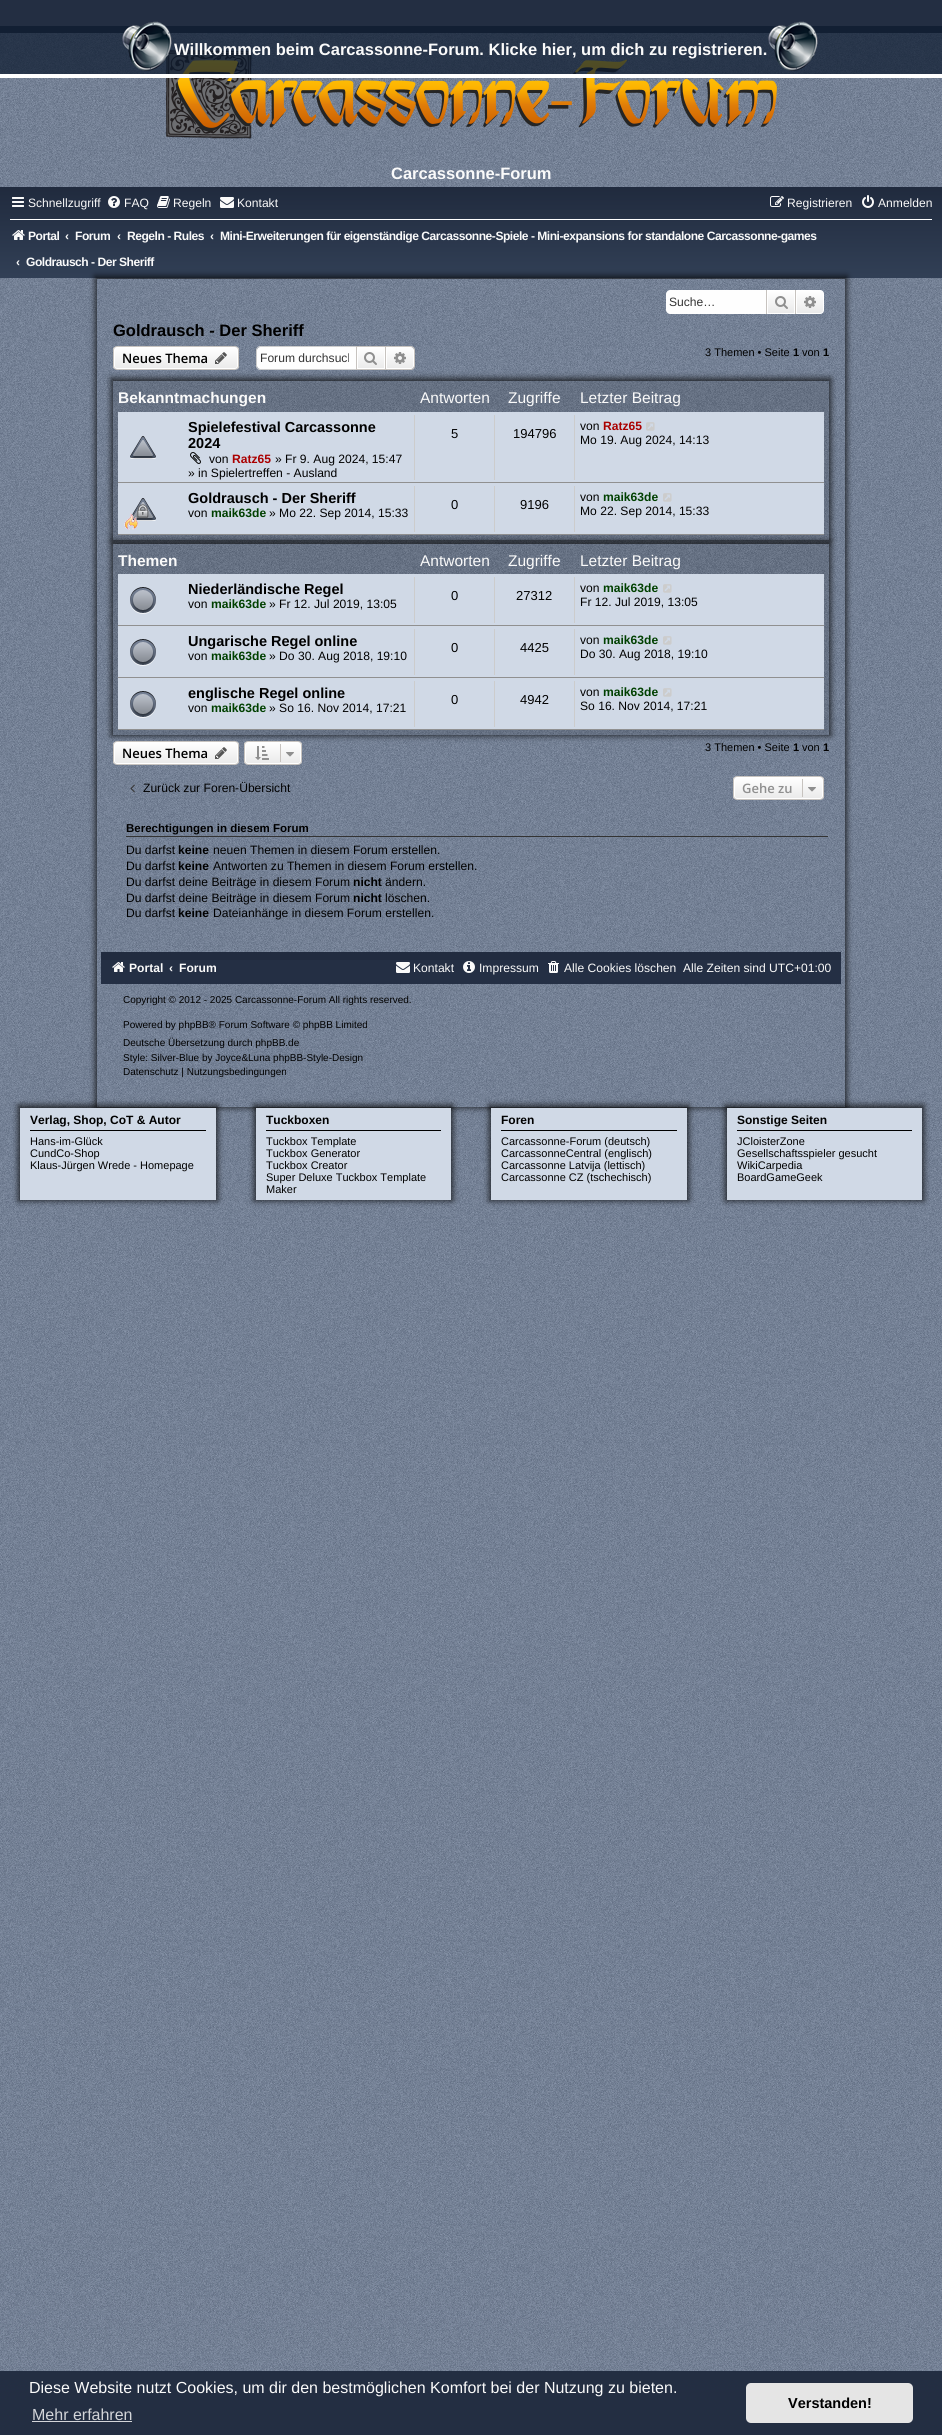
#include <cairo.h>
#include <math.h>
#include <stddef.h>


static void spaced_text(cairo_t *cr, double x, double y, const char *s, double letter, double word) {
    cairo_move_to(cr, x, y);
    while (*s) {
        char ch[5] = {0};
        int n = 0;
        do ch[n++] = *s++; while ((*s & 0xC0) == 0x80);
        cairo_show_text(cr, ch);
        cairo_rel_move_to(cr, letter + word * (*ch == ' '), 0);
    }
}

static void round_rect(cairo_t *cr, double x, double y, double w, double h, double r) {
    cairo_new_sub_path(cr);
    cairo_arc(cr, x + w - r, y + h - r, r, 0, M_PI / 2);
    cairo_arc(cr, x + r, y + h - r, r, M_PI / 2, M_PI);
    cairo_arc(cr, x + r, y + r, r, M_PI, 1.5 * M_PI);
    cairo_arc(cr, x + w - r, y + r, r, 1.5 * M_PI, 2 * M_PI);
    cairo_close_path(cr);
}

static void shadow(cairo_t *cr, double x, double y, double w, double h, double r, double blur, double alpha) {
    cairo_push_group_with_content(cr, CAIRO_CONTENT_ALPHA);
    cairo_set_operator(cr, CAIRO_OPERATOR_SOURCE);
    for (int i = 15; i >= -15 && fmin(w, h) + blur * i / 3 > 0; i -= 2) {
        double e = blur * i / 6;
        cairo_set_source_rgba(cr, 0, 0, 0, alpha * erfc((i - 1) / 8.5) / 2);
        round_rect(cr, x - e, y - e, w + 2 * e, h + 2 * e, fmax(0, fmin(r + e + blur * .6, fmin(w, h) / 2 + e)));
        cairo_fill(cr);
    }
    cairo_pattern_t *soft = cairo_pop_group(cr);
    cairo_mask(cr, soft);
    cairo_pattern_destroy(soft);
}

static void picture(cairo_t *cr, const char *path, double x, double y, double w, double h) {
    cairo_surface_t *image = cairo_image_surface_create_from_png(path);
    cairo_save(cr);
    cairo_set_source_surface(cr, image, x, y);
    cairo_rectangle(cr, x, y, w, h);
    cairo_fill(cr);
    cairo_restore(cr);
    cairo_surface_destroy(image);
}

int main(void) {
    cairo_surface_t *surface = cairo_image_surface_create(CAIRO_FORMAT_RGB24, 942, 2435);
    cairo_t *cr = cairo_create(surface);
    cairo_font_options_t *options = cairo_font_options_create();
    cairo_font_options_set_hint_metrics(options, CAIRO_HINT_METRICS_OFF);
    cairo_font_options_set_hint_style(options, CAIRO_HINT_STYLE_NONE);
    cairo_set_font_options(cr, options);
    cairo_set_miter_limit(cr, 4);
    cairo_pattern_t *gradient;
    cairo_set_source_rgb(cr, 1, 1, 1);
    cairo_paint(cr);
    picture(cr, "img1.png", 0, 1236, 942, 1135);
    picture(cr, "img2.png", 0, 278, 942, 958);
    cairo_set_source_rgb(cr, 0.137, 0.18, 0.259);
    cairo_rectangle(cr, 0, 0, 942, 33);
    cairo_fill(cr);
    picture(cr, "img6.png", 0, 33, 942, 154);
    picture(cr, "img7.png", 166, 50, 611, 89);
    cairo_set_source_rgba(cr, 0.047, 0.102, 0.184, 0.72);
    cairo_rectangle(cr, 0, 26, 942, 48);
    cairo_fill(cr);
    cairo_set_source_rgb(cr, 1, 1, 1);
    cairo_rectangle(cr, 0, 74, 942, 4);
    cairo_fill(cr);
    picture(cr, "img3.png", 122, 21, 50, 50);
    cairo_select_font_face(cr, "Liberation Sans", CAIRO_FONT_SLANT_NORMAL, CAIRO_FONT_WEIGHT_BOLD);
    cairo_set_font_size(cr, 16.5);
    cairo_set_source_rgb(cr, 0.98, 0.98, 0.98);
    cairo_move_to(cr, 174, 55);
    cairo_show_text(cr, "Willkommen beim Carcassonne-Forum. Klicke hier, um dich zu registrieren.");
    picture(cr, "img4.png", 768, 21, 50, 50);
    picture(cr, "img5.png", 12, 278, 918, 829);
    cairo_move_to(cr, 391, 179);
    cairo_show_text(cr, "Carcassonne-Forum");
    picture(cr, "img8.png", 0, 187, 942, 91);
    picture(cr, "img9.png", 12, 197, 12, 10);
    cairo_select_font_face(cr, "Liberation Sans", CAIRO_FONT_SLANT_NORMAL, CAIRO_FONT_WEIGHT_NORMAL);
    cairo_set_font_size(cr, 12.1);
    cairo_move_to(cr, 28, 207);
    cairo_show_text(cr, "Schnellzugriff");
    picture(cr, "img10.png", 108, 196, 12, 12);
    cairo_move_to(cr, 124, 207);
    cairo_show_text(cr, "FAQ");
    picture(cr, "img11.png", 157, 196, 13, 12);
    cairo_move_to(cr, 173, 207);
    cairo_show_text(cr, "Regeln");
    picture(cr, "img12.png", 220, 197, 14, 11);
    cairo_move_to(cr, 237, 207);
    cairo_show_text(cr, "Kontakt");
    picture(cr, "img13.png", 770, 196, 14, 11);
    cairo_move_to(cr, 787, 207);
    cairo_show_text(cr, "Registrieren");
    picture(cr, "img14.png", 862, 195, 12, 13);
    cairo_move_to(cr, 878, 207);
    cairo_show_text(cr, "Anmelden");
    cairo_set_source_rgb(cr, 1, 1, 1);
    cairo_rectangle(cr, 10, 219, 922, 1);
    cairo_fill(cr);
    picture(cr, "img15.png", 12, 230, 13, 10);
    cairo_select_font_face(cr, "Liberation Sans", CAIRO_FONT_SLANT_NORMAL, CAIRO_FONT_WEIGHT_BOLD);
    cairo_set_source_rgb(cr, 0.98, 0.98, 0.98);
    spaced_text(cr, 28, 240, "Portal", -0.5, 0);
    cairo_move_to(cr, 65, 240);
    cairo_show_text(cr, "‹");
    spaced_text(cr, 75, 240, "Forum", -0.5, 0);
    cairo_move_to(cr, 117, 240);
    cairo_show_text(cr, "‹");
    spaced_text(cr, 127, 240, "Regeln - Rules", -0.5, 0);
    cairo_move_to(cr, 210, 240);
    cairo_show_text(cr, "‹");
    spaced_text(cr, 220, 240, "Mini-Erweiterungen für eigenständige Carcassonne-Spiele - Mini-expansions for standalone Carcassonne-games", -0.5, 0);
    cairo_move_to(cr, 16, 266);
    cairo_show_text(cr, "‹");
    cairo_save(cr);
    cairo_set_fill_rule(cr, CAIRO_FILL_RULE_EVEN_ODD);
    cairo_new_path(cr);
    cairo_move_to(cr, 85, 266);
    cairo_line_to(cr, 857, 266);
    cairo_line_to(cr, 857, 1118);
    cairo_line_to(cr, 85, 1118);
    cairo_close_path(cr);
    cairo_move_to(cr, 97, 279);
    cairo_line_to(cr, 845, 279);
    cairo_line_to(cr, 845, 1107);
    cairo_line_to(cr, 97, 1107);
    cairo_close_path(cr);
    cairo_clip(cr);
    cairo_set_source_rgb(cr, 0.008, 0.008, 0.008);
    shadow(cr, 95, 276, 752, 832, 0, 3, 0.7);
    cairo_restore(cr);
    spaced_text(cr, 26, 266, "Goldrausch - Der Sheriff", -0.5, 0);
    cairo_set_source_rgb(cr, 0.996, 0.996, 0.996);
    cairo_new_path(cr);
    cairo_move_to(cr, 670, 290);
    cairo_line_to(cr, 766, 290);
    cairo_line_to(cr, 766, 314);
    cairo_line_to(cr, 670, 314);
    cairo_curve_to(cr, 668, 314, 666, 312, 666, 310);
    cairo_line_to(cr, 666, 294);
    cairo_curve_to(cr, 666, 292, 668, 290, 670, 290);
    cairo_close_path(cr);
    cairo_fill(cr);
    cairo_select_font_face(cr, "Liberation Sans", CAIRO_FONT_SLANT_NORMAL, CAIRO_FONT_WEIGHT_NORMAL);
    cairo_set_source_rgb(cr, 0.2, 0.2, 0.2);
    cairo_move_to(cr, 669, 306);
    cairo_show_text(cr, "Suche…");
    gradient = cairo_pattern_create_linear(781, 290, 781, 314);
    cairo_pattern_add_color_stop_rgba(gradient, 0, 1, 1, 1, 1);
    cairo_pattern_add_color_stop_rgba(gradient, 1, 0.914, 0.914, 0.914, 1);
    cairo_set_source(cr, gradient);
    cairo_pattern_destroy(gradient);
    cairo_rectangle(cr, 768, 291, 26, 22);
    cairo_fill(cr);
    cairo_rectangle(cr, 767.5, 290.5, 27, 23);
    cairo_set_source_rgb(cr, 1, 1, 1);
    cairo_set_line_width(cr, 1);
    cairo_stroke(cr);
    cairo_set_source_rgb(cr, 0.78, 0.765, 0.749);
    cairo_rectangle(cr, 795, 290, 1, 24);
    cairo_fill(cr);
    cairo_rectangle(cr, 766, 290, 1, 24);
    cairo_fill(cr);
    picture(cr, "img16.png", 775, 296, 13, 13);
    gradient = cairo_pattern_create_linear(810, 290, 810, 314);
    cairo_pattern_add_color_stop_rgba(gradient, 0, 1, 1, 1, 1);
    cairo_pattern_add_color_stop_rgba(gradient, 1, 0.914, 0.914, 0.914, 1);
    cairo_set_source(cr, gradient);
    cairo_pattern_destroy(gradient);
    cairo_new_path(cr);
    cairo_move_to(cr, 796.5, 290.5);
    cairo_line_to(cr, 820, 290.5);
    cairo_curve_to(cr, 822, 290.5, 823.5, 292, 823.5, 294);
    cairo_line_to(cr, 823.5, 310);
    cairo_curve_to(cr, 823.5, 312, 822, 313.5, 820, 313.5);
    cairo_line_to(cr, 796.5, 313.5);
    cairo_close_path(cr);
    cairo_fill_preserve(cr);
    cairo_set_source_rgb(cr, 1, 1, 1);
    cairo_stroke(cr);
    picture(cr, "img17.png", 804, 296, 12, 12);
    picture(cr, "img18.png", 113, 321, 716, 631);
    cairo_select_font_face(cr, "Liberation Sans", CAIRO_FONT_SLANT_NORMAL, CAIRO_FONT_WEIGHT_BOLD);
    cairo_set_font_size(cr, 16.5);
    cairo_set_source_rgb(cr, 0, 0, 0);
    cairo_move_to(cr, 113, 336);
    cairo_show_text(cr, "Goldrausch - Der Sheriff");
    cairo_set_source_rgb(cr, 0.008, 0.008, 0.008);
    shadow(cr, 111, 378, 720, 163, 0, 3, 0.7);
    cairo_save(cr);
    round_rect(cr, 113, 346, 126, 24, 4);
    cairo_clip(cr);
    gradient = cairo_pattern_create_linear(176, 347, 176, 369);
    cairo_pattern_add_color_stop_rgba(gradient, 0, 1, 1, 1, 1);
    cairo_pattern_add_color_stop_rgba(gradient, 1, 0.914, 0.914, 0.914, 1);
    cairo_set_source(cr, gradient);
    cairo_pattern_destroy(gradient);
    cairo_rectangle(cr, 113, 347, 126, 22);
    cairo_fill(cr);
    cairo_restore(cr);
    round_rect(cr, 114.5, 347.5, 123, 21, 2.5);
    cairo_set_source_rgb(cr, 1, 1, 1);
    cairo_stroke(cr);
    round_rect(cr, 113.5, 346.5, 125, 23, 3.5);
    cairo_set_source_rgb(cr, 0.78, 0.765, 0.749);
    cairo_stroke(cr);
    cairo_select_font_face(cr, "Open Sans SemiBold", CAIRO_FONT_SLANT_NORMAL, CAIRO_FONT_WEIGHT_NORMAL);
    cairo_set_font_size(cr, 13);
    cairo_set_source_rgb(cr, 0, 0, 0);
    cairo_move_to(cr, 122, 363);
    cairo_show_text(cr, "Neues Thema");
    picture(cr, "img19.png", 215, 352, 12, 12);
    cairo_set_source_rgb(cr, 0.996, 0.996, 0.996);
    cairo_new_path(cr);
    cairo_move_to(cr, 260, 347);
    cairo_line_to(cr, 356, 347);
    cairo_line_to(cr, 356, 369);
    cairo_line_to(cr, 260, 369);
    cairo_curve_to(cr, 258.5, 369, 257, 367.5, 257, 366);
    cairo_line_to(cr, 257, 350);
    cairo_curve_to(cr, 257, 348.5, 258.5, 347, 260, 347);
    cairo_close_path(cr);
    cairo_fill(cr);
    cairo_set_source_rgb(cr, 0.8, 0.8, 0.8);
    cairo_set_fill_rule(cr, CAIRO_FILL_RULE_EVEN_ODD);
    cairo_new_path(cr);
    cairo_move_to(cr, 260, 346);
    cairo_line_to(cr, 356, 346);
    cairo_line_to(cr, 356, 370);
    cairo_line_to(cr, 260, 370);
    cairo_curve_to(cr, 258, 370, 256, 368, 256, 366);
    cairo_line_to(cr, 256, 350);
    cairo_curve_to(cr, 256, 348, 258, 346, 260, 346);
    cairo_close_path(cr);
    cairo_move_to(cr, 260, 347);
    cairo_line_to(cr, 356, 347);
    cairo_line_to(cr, 356, 369);
    cairo_line_to(cr, 260, 369);
    cairo_curve_to(cr, 258, 369, 257, 368, 257, 366);
    cairo_line_to(cr, 257, 350);
    cairo_curve_to(cr, 257, 348, 258, 347, 260, 347);
    cairo_close_path(cr);
    cairo_fill(cr);
    cairo_save(cr);
    cairo_set_fill_rule(cr, CAIRO_FILL_RULE_WINDING);
    cairo_rectangle(cr, 260, 351, 89, 14);
    cairo_clip(cr);
    cairo_select_font_face(cr, "Liberation Sans", CAIRO_FONT_SLANT_NORMAL, CAIRO_FONT_WEIGHT_NORMAL);
    cairo_set_font_size(cr, 12.1);
    cairo_set_source_rgb(cr, 0.2, 0.2, 0.2);
    cairo_move_to(cr, 260, 362);
    cairo_show_text(cr, "Forum durchsuch");
    cairo_restore(cr);
    gradient = cairo_pattern_create_linear(371, 347, 371, 369);
    cairo_pattern_add_color_stop_rgba(gradient, 0, 1, 1, 1, 1);
    cairo_pattern_add_color_stop_rgba(gradient, 1, 0.914, 0.914, 0.914, 1);
    cairo_set_source(cr, gradient);
    cairo_pattern_destroy(gradient);
    cairo_rectangle(cr, 358, 348, 26, 20);
    cairo_fill(cr);
    cairo_rectangle(cr, 357.5, 347.5, 27, 21);
    cairo_set_source_rgb(cr, 1, 1, 1);
    cairo_stroke(cr);
    cairo_rectangle(cr, 356.5, 346.5, 29, 23);
    cairo_set_source_rgb(cr, 0.78, 0.765, 0.749);
    cairo_stroke(cr);
    picture(cr, "img20.png", 364, 352, 13, 13);
    gradient = cairo_pattern_create_linear(400, 347, 400, 369);
    cairo_pattern_add_color_stop_rgba(gradient, 0, 1, 1, 1, 1);
    cairo_pattern_add_color_stop_rgba(gradient, 1, 0.914, 0.914, 0.914, 1);
    cairo_set_source(cr, gradient);
    cairo_pattern_destroy(gradient);
    cairo_new_path(cr);
    cairo_move_to(cr, 386.5, 347.5);
    cairo_line_to(cr, 411, 347.5);
    cairo_curve_to(cr, 412.5, 347.5, 413.5, 348.5, 413.5, 350);
    cairo_line_to(cr, 413.5, 366);
    cairo_curve_to(cr, 413.5, 367.5, 412.5, 368.5, 411, 368.5);
    cairo_line_to(cr, 386.5, 368.5);
    cairo_close_path(cr);
    cairo_fill_preserve(cr);
    cairo_set_source_rgb(cr, 1, 1, 1);
    cairo_stroke(cr);
    cairo_set_source_rgb(cr, 0.78, 0.765, 0.749);
    cairo_new_path(cr);
    cairo_move_to(cr, 386, 346);
    cairo_line_to(cr, 411, 346);
    cairo_curve_to(cr, 413, 346, 415, 348, 415, 350);
    cairo_line_to(cr, 415, 366);
    cairo_curve_to(cr, 415, 368, 413, 370, 411, 370);
    cairo_line_to(cr, 386, 370);
    cairo_close_path(cr);
    cairo_move_to(cr, 386, 347);
    cairo_line_to(cr, 411, 347);
    cairo_curve_to(cr, 412.5, 347, 414, 348.5, 414, 350);
    cairo_line_to(cr, 414, 366);
    cairo_curve_to(cr, 414, 367.5, 412.5, 369, 411, 369);
    cairo_line_to(cr, 386, 369);
    cairo_close_path(cr);
    cairo_fill(cr);
    picture(cr, "img21.png", 394, 352, 12, 12);
    cairo_select_font_face(cr, "Liberation Sans", CAIRO_FONT_SLANT_NORMAL, CAIRO_FONT_WEIGHT_NORMAL);
    cairo_set_font_size(cr, 11);
    cairo_set_source_rgb(cr, 0, 0, 0);
    cairo_move_to(cr, 705, 356);
    cairo_show_text(cr, "3 Themen • Seite");
    cairo_select_font_face(cr, "Liberation Sans", CAIRO_FONT_SLANT_NORMAL, CAIRO_FONT_WEIGHT_BOLD);
    cairo_move_to(cr, 793, 356);
    cairo_show_text(cr, "1");
    cairo_select_font_face(cr, "Liberation Sans", CAIRO_FONT_SLANT_NORMAL, CAIRO_FONT_WEIGHT_NORMAL);
    cairo_move_to(cr, 802, 356);
    cairo_show_text(cr, "von");
    cairo_select_font_face(cr, "Liberation Sans", CAIRO_FONT_SLANT_NORMAL, CAIRO_FONT_WEIGHT_BOLD);
    cairo_move_to(cr, 823, 356);
    cairo_show_text(cr, "1");
    picture(cr, "img22.png", 113, 381, 716, 159);
    cairo_set_font_size(cr, 15.5);
    cairo_set_source_rgb(cr, 0.98, 0.98, 0.98);
    cairo_move_to(cr, 118, 403);
    cairo_show_text(cr, "Bekanntmachungen");
    cairo_select_font_face(cr, "Liberation Sans", CAIRO_FONT_SLANT_NORMAL, CAIRO_FONT_WEIGHT_NORMAL);
    cairo_move_to(cr, 420, 403);
    cairo_show_text(cr, "Antworten");
    cairo_move_to(cr, 508, 403);
    cairo_show_text(cr, "Zugriffe");
    cairo_move_to(cr, 580, 403);
    cairo_show_text(cr, "Letzter Beitrag");
    cairo_set_source_rgb(cr, 0.816, 0.851, 0.902);
    cairo_rectangle(cr, 118, 412, 706, 70);
    cairo_fill(cr);
    cairo_set_source_rgb(cr, 0.565, 0.565, 0.565);
    cairo_rectangle(cr, 118, 482, 706, 1);
    cairo_fill(cr);
    picture(cr, "img23.png", 130, 436, 26, 23);
    cairo_select_font_face(cr, "Liberation Sans", CAIRO_FONT_SLANT_NORMAL, CAIRO_FONT_WEIGHT_BOLD);
    cairo_set_font_size(cr, 14.5);
    cairo_set_source_rgb(cr, 0, 0, 0);
    cairo_move_to(cr, 188, 432);
    cairo_show_text(cr, "Spielefestival Carcassonne");
    cairo_move_to(cr, 188, 448);
    cairo_show_text(cr, "2024");
    picture(cr, "img24.png", 190, 452, 11, 12);
    cairo_select_font_face(cr, "Liberation Sans", CAIRO_FONT_SLANT_NORMAL, CAIRO_FONT_WEIGHT_NORMAL);
    cairo_set_font_size(cr, 12.1);
    cairo_move_to(cr, 209, 463);
    cairo_show_text(cr, "von");
    cairo_select_font_face(cr, "Liberation Sans", CAIRO_FONT_SLANT_NORMAL, CAIRO_FONT_WEIGHT_BOLD);
    cairo_set_source_rgb(cr, 0.667, 0, 0);
    cairo_move_to(cr, 232, 463);
    cairo_show_text(cr, "Ratz65");
    cairo_select_font_face(cr, "Liberation Sans", CAIRO_FONT_SLANT_NORMAL, CAIRO_FONT_WEIGHT_NORMAL);
    cairo_set_source_rgb(cr, 0, 0, 0);
    cairo_move_to(cr, 275, 463);
    cairo_show_text(cr, "» Fr 9. Aug 2024, 15:47");
    cairo_move_to(cr, 188, 477);
    cairo_show_text(cr, "» in Spielertreffen - Ausland");
    cairo_set_source_rgb(cr, 0.8, 0.8, 0.8);
    cairo_rectangle(cr, 414, 415, 1, 65);
    cairo_fill(cr);
    cairo_set_font_size(cr, 13);
    cairo_set_source_rgb(cr, 0, 0, 0);
    cairo_move_to(cr, 451, 438);
    cairo_show_text(cr, "5");
    cairo_set_source_rgb(cr, 0.8, 0.8, 0.8);
    cairo_rectangle(cr, 494, 415, 1, 65);
    cairo_fill(cr);
    cairo_set_source_rgb(cr, 0, 0, 0);
    cairo_move_to(cr, 513, 438);
    cairo_show_text(cr, "194796");
    cairo_set_source_rgb(cr, 0.8, 0.8, 0.8);
    cairo_rectangle(cr, 574, 415, 1, 65);
    cairo_fill(cr);
    cairo_set_font_size(cr, 12.1);
    cairo_set_source_rgb(cr, 0, 0, 0);
    cairo_move_to(cr, 580, 430);
    cairo_show_text(cr, "von");
    cairo_select_font_face(cr, "Liberation Sans", CAIRO_FONT_SLANT_NORMAL, CAIRO_FONT_WEIGHT_BOLD);
    cairo_set_source_rgb(cr, 0.667, 0, 0);
    cairo_move_to(cr, 603, 430);
    cairo_show_text(cr, "Ratz65");
    picture(cr, "img25.png", 646, 422, 9, 9);
    cairo_select_font_face(cr, "Liberation Sans", CAIRO_FONT_SLANT_NORMAL, CAIRO_FONT_WEIGHT_NORMAL);
    cairo_set_source_rgb(cr, 0, 0, 0);
    cairo_move_to(cr, 580, 444);
    cairo_show_text(cr, "Mo 19. Aug 2024, 14:13");
    cairo_set_source_rgb(cr, 0.816, 0.851, 0.902);
    cairo_rectangle(cr, 118, 483, 706, 51);
    cairo_fill(cr);
    cairo_set_source_rgb(cr, 0.565, 0.565, 0.565);
    cairo_rectangle(cr, 118, 534, 706, 1);
    cairo_fill(cr);
    picture(cr, "img26.png", 130, 498, 26, 23);
    picture(cr, "img27.png", 124, 513, 14, 17);
    cairo_select_font_face(cr, "Liberation Sans", CAIRO_FONT_SLANT_NORMAL, CAIRO_FONT_WEIGHT_BOLD);
    cairo_set_font_size(cr, 14.5);
    cairo_set_source_rgb(cr, 0, 0, 0);
    cairo_move_to(cr, 188, 503);
    cairo_show_text(cr, "Goldrausch - Der Sheriff");
    cairo_select_font_face(cr, "Liberation Sans", CAIRO_FONT_SLANT_NORMAL, CAIRO_FONT_WEIGHT_NORMAL);
    cairo_set_font_size(cr, 12.1);
    cairo_move_to(cr, 188, 517);
    cairo_show_text(cr, "von");
    cairo_select_font_face(cr, "Liberation Sans", CAIRO_FONT_SLANT_NORMAL, CAIRO_FONT_WEIGHT_BOLD);
    cairo_set_source_rgb(cr, 0, 0.251, 0);
    cairo_move_to(cr, 211, 517);
    cairo_show_text(cr, "maik63de");
    cairo_select_font_face(cr, "Liberation Sans", CAIRO_FONT_SLANT_NORMAL, CAIRO_FONT_WEIGHT_NORMAL);
    cairo_set_source_rgb(cr, 0, 0, 0);
    cairo_move_to(cr, 269, 517);
    cairo_show_text(cr, "» Mo 22. Sep 2014, 15:33");
    cairo_set_source_rgb(cr, 0.008, 0.008, 0.008);
    shadow(cr, 111, 541, 720, 195, 0, 3, 0.7);
    cairo_set_source_rgb(cr, 0.8, 0.8, 0.8);
    cairo_rectangle(cr, 414, 486, 1, 46);
    cairo_fill(cr);
    cairo_set_font_size(cr, 13);
    cairo_set_source_rgb(cr, 0, 0, 0);
    cairo_move_to(cr, 451, 509);
    cairo_show_text(cr, "0");
    cairo_set_source_rgb(cr, 0.8, 0.8, 0.8);
    cairo_rectangle(cr, 494, 486, 1, 46);
    cairo_fill(cr);
    cairo_set_source_rgb(cr, 0, 0, 0);
    cairo_move_to(cr, 520, 509);
    cairo_show_text(cr, "9196");
    cairo_set_source_rgb(cr, 0.8, 0.8, 0.8);
    cairo_rectangle(cr, 574, 486, 1, 46);
    cairo_fill(cr);
    cairo_set_font_size(cr, 12.1);
    cairo_set_source_rgb(cr, 0, 0, 0);
    cairo_move_to(cr, 580, 501);
    cairo_show_text(cr, "von");
    cairo_select_font_face(cr, "Liberation Sans", CAIRO_FONT_SLANT_NORMAL, CAIRO_FONT_WEIGHT_BOLD);
    cairo_set_source_rgb(cr, 0, 0.251, 0);
    cairo_move_to(cr, 603, 501);
    cairo_show_text(cr, "maik63de");
    picture(cr, "img25.png", 663, 493, 9, 9);
    cairo_select_font_face(cr, "Liberation Sans", CAIRO_FONT_SLANT_NORMAL, CAIRO_FONT_WEIGHT_NORMAL);
    cairo_set_source_rgb(cr, 0, 0, 0);
    cairo_move_to(cr, 580, 515);
    cairo_show_text(cr, "Mo 22. Sep 2014, 15:33");
    picture(cr, "img28.png", 113, 544, 716, 191);
    cairo_select_font_face(cr, "Liberation Sans", CAIRO_FONT_SLANT_NORMAL, CAIRO_FONT_WEIGHT_BOLD);
    cairo_set_font_size(cr, 15.5);
    cairo_set_source_rgb(cr, 0.98, 0.98, 0.98);
    cairo_move_to(cr, 118, 566);
    cairo_show_text(cr, "Themen");
    cairo_select_font_face(cr, "Liberation Sans", CAIRO_FONT_SLANT_NORMAL, CAIRO_FONT_WEIGHT_NORMAL);
    cairo_move_to(cr, 420, 566);
    cairo_show_text(cr, "Antworten");
    cairo_move_to(cr, 508, 566);
    cairo_show_text(cr, "Zugriffe");
    cairo_move_to(cr, 580, 566);
    cairo_show_text(cr, "Letzter Beitrag");
    cairo_set_source_rgb(cr, 0.816, 0.851, 0.902);
    cairo_rectangle(cr, 118, 574, 706, 51);
    cairo_fill(cr);
    cairo_set_source_rgb(cr, 0.565, 0.565, 0.565);
    cairo_rectangle(cr, 118, 625, 706, 1);
    cairo_fill(cr);
    picture(cr, "img29.png", 130, 587, 26, 27);
    cairo_select_font_face(cr, "Liberation Sans", CAIRO_FONT_SLANT_NORMAL, CAIRO_FONT_WEIGHT_BOLD);
    cairo_set_font_size(cr, 14.5);
    cairo_set_source_rgb(cr, 0, 0, 0);
    cairo_move_to(cr, 188, 594);
    cairo_show_text(cr, "Niederländische Regel");
    cairo_select_font_face(cr, "Liberation Sans", CAIRO_FONT_SLANT_NORMAL, CAIRO_FONT_WEIGHT_NORMAL);
    cairo_set_font_size(cr, 12.1);
    cairo_move_to(cr, 188, 608);
    cairo_show_text(cr, "von");
    cairo_select_font_face(cr, "Liberation Sans", CAIRO_FONT_SLANT_NORMAL, CAIRO_FONT_WEIGHT_BOLD);
    cairo_set_source_rgb(cr, 0, 0.251, 0);
    cairo_move_to(cr, 211, 608);
    cairo_show_text(cr, "maik63de");
    cairo_select_font_face(cr, "Liberation Sans", CAIRO_FONT_SLANT_NORMAL, CAIRO_FONT_WEIGHT_NORMAL);
    cairo_set_source_rgb(cr, 0, 0, 0);
    cairo_move_to(cr, 269, 608);
    cairo_show_text(cr, "» Fr 12. Jul 2019, 13:05");
    cairo_set_source_rgb(cr, 0.8, 0.8, 0.8);
    cairo_rectangle(cr, 414, 577, 1, 46);
    cairo_fill(cr);
    cairo_set_font_size(cr, 13);
    cairo_set_source_rgb(cr, 0, 0, 0);
    cairo_move_to(cr, 451, 600);
    cairo_show_text(cr, "0");
    cairo_set_source_rgb(cr, 0.8, 0.8, 0.8);
    cairo_rectangle(cr, 494, 577, 1, 46);
    cairo_fill(cr);
    cairo_set_source_rgb(cr, 0, 0, 0);
    cairo_move_to(cr, 516, 600);
    cairo_show_text(cr, "27312");
    cairo_set_source_rgb(cr, 0.8, 0.8, 0.8);
    cairo_rectangle(cr, 574, 577, 1, 46);
    cairo_fill(cr);
    cairo_set_font_size(cr, 12.1);
    cairo_set_source_rgb(cr, 0, 0, 0);
    cairo_move_to(cr, 580, 592);
    cairo_show_text(cr, "von");
    cairo_select_font_face(cr, "Liberation Sans", CAIRO_FONT_SLANT_NORMAL, CAIRO_FONT_WEIGHT_BOLD);
    cairo_set_source_rgb(cr, 0, 0.251, 0);
    cairo_move_to(cr, 603, 592);
    cairo_show_text(cr, "maik63de");
    picture(cr, "img25.png", 663, 584, 9, 9);
    cairo_select_font_face(cr, "Liberation Sans", CAIRO_FONT_SLANT_NORMAL, CAIRO_FONT_WEIGHT_NORMAL);
    cairo_set_source_rgb(cr, 0, 0, 0);
    cairo_move_to(cr, 580, 606);
    cairo_show_text(cr, "Fr 12. Jul 2019, 13:05");
    cairo_set_source_rgb(cr, 0.816, 0.851, 0.902);
    cairo_rectangle(cr, 118, 626, 706, 51);
    cairo_fill(cr);
    cairo_set_source_rgb(cr, 0.565, 0.565, 0.565);
    cairo_rectangle(cr, 118, 677, 706, 1);
    cairo_fill(cr);
    picture(cr, "img29.png", 130, 639, 26, 27);
    cairo_select_font_face(cr, "Liberation Sans", CAIRO_FONT_SLANT_NORMAL, CAIRO_FONT_WEIGHT_BOLD);
    cairo_set_font_size(cr, 14.5);
    cairo_set_source_rgb(cr, 0, 0, 0);
    cairo_move_to(cr, 188, 646);
    cairo_show_text(cr, "Ungarische Regel online");
    cairo_select_font_face(cr, "Liberation Sans", CAIRO_FONT_SLANT_NORMAL, CAIRO_FONT_WEIGHT_NORMAL);
    cairo_set_font_size(cr, 12.1);
    cairo_move_to(cr, 188, 660);
    cairo_show_text(cr, "von");
    cairo_select_font_face(cr, "Liberation Sans", CAIRO_FONT_SLANT_NORMAL, CAIRO_FONT_WEIGHT_BOLD);
    cairo_set_source_rgb(cr, 0, 0.251, 0);
    cairo_move_to(cr, 211, 660);
    cairo_show_text(cr, "maik63de");
    cairo_select_font_face(cr, "Liberation Sans", CAIRO_FONT_SLANT_NORMAL, CAIRO_FONT_WEIGHT_NORMAL);
    cairo_set_source_rgb(cr, 0, 0, 0);
    cairo_move_to(cr, 269, 660);
    cairo_show_text(cr, "» Do 30. Aug 2018, 19:10");
    cairo_set_source_rgb(cr, 0.8, 0.8, 0.8);
    cairo_rectangle(cr, 414, 629, 1, 46);
    cairo_fill(cr);
    cairo_set_font_size(cr, 13);
    cairo_set_source_rgb(cr, 0, 0, 0);
    cairo_move_to(cr, 451, 652);
    cairo_show_text(cr, "0");
    cairo_set_source_rgb(cr, 0.8, 0.8, 0.8);
    cairo_rectangle(cr, 494, 629, 1, 46);
    cairo_fill(cr);
    cairo_set_source_rgb(cr, 0, 0, 0);
    cairo_move_to(cr, 520, 652);
    cairo_show_text(cr, "4425");
    cairo_set_source_rgb(cr, 0.8, 0.8, 0.8);
    cairo_rectangle(cr, 574, 629, 1, 46);
    cairo_fill(cr);
    cairo_set_font_size(cr, 12.1);
    cairo_set_source_rgb(cr, 0, 0, 0);
    cairo_move_to(cr, 580, 644);
    cairo_show_text(cr, "von");
    cairo_select_font_face(cr, "Liberation Sans", CAIRO_FONT_SLANT_NORMAL, CAIRO_FONT_WEIGHT_BOLD);
    cairo_set_source_rgb(cr, 0, 0.251, 0);
    cairo_move_to(cr, 603, 644);
    cairo_show_text(cr, "maik63de");
    picture(cr, "img25.png", 663, 636, 9, 9);
    cairo_select_font_face(cr, "Liberation Sans", CAIRO_FONT_SLANT_NORMAL, CAIRO_FONT_WEIGHT_NORMAL);
    cairo_set_source_rgb(cr, 0, 0, 0);
    cairo_move_to(cr, 580, 658);
    cairo_show_text(cr, "Do 30. Aug 2018, 19:10");
    cairo_set_source_rgb(cr, 0.816, 0.851, 0.902);
    cairo_rectangle(cr, 118, 678, 706, 51);
    cairo_fill(cr);
    cairo_set_source_rgb(cr, 0.565, 0.565, 0.565);
    cairo_rectangle(cr, 118, 729, 706, 1);
    cairo_fill(cr);
    picture(cr, "img29.png", 130, 691, 26, 27);
    cairo_select_font_face(cr, "Liberation Sans", CAIRO_FONT_SLANT_NORMAL, CAIRO_FONT_WEIGHT_BOLD);
    cairo_set_font_size(cr, 14.5);
    cairo_set_source_rgb(cr, 0, 0, 0);
    cairo_move_to(cr, 188, 698);
    cairo_show_text(cr, "englische Regel online");
    cairo_select_font_face(cr, "Liberation Sans", CAIRO_FONT_SLANT_NORMAL, CAIRO_FONT_WEIGHT_NORMAL);
    cairo_set_font_size(cr, 12.1);
    cairo_move_to(cr, 188, 712);
    cairo_show_text(cr, "von");
    cairo_select_font_face(cr, "Liberation Sans", CAIRO_FONT_SLANT_NORMAL, CAIRO_FONT_WEIGHT_BOLD);
    cairo_set_source_rgb(cr, 0, 0.251, 0);
    cairo_move_to(cr, 211, 712);
    cairo_show_text(cr, "maik63de");
    cairo_select_font_face(cr, "Liberation Sans", CAIRO_FONT_SLANT_NORMAL, CAIRO_FONT_WEIGHT_NORMAL);
    cairo_set_source_rgb(cr, 0, 0, 0);
    cairo_move_to(cr, 269, 712);
    cairo_show_text(cr, "» So 16. Nov 2014, 17:21");
    cairo_set_source_rgb(cr, 0.8, 0.8, 0.8);
    cairo_rectangle(cr, 414, 681, 1, 46);
    cairo_fill(cr);
    cairo_set_font_size(cr, 13);
    cairo_set_source_rgb(cr, 0, 0, 0);
    cairo_move_to(cr, 451, 704);
    cairo_show_text(cr, "0");
    cairo_set_source_rgb(cr, 0.8, 0.8, 0.8);
    cairo_rectangle(cr, 494, 681, 1, 46);
    cairo_fill(cr);
    cairo_set_source_rgb(cr, 0, 0, 0);
    cairo_move_to(cr, 520, 704);
    cairo_show_text(cr, "4942");
    cairo_set_source_rgb(cr, 0.8, 0.8, 0.8);
    cairo_rectangle(cr, 574, 681, 1, 46);
    cairo_fill(cr);
    cairo_set_font_size(cr, 12.1);
    cairo_set_source_rgb(cr, 0, 0, 0);
    cairo_move_to(cr, 580, 696);
    cairo_show_text(cr, "von");
    cairo_select_font_face(cr, "Liberation Sans", CAIRO_FONT_SLANT_NORMAL, CAIRO_FONT_WEIGHT_BOLD);
    cairo_set_source_rgb(cr, 0, 0.251, 0);
    cairo_move_to(cr, 603, 696);
    cairo_show_text(cr, "maik63de");
    picture(cr, "img25.png", 663, 688, 9, 9);
    cairo_select_font_face(cr, "Liberation Sans", CAIRO_FONT_SLANT_NORMAL, CAIRO_FONT_WEIGHT_NORMAL);
    cairo_set_source_rgb(cr, 0, 0, 0);
    cairo_move_to(cr, 580, 710);
    cairo_show_text(cr, "So 16. Nov 2014, 17:21");
    cairo_save(cr);
    cairo_set_fill_rule(cr, CAIRO_FILL_RULE_WINDING);
    round_rect(cr, 113, 741, 126, 24, 4);
    cairo_clip(cr);
    gradient = cairo_pattern_create_linear(176, 742, 176, 764);
    cairo_pattern_add_color_stop_rgba(gradient, 0, 1, 1, 1, 1);
    cairo_pattern_add_color_stop_rgba(gradient, 1, 0.914, 0.914, 0.914, 1);
    cairo_set_source(cr, gradient);
    cairo_pattern_destroy(gradient);
    cairo_rectangle(cr, 113, 742, 126, 22);
    cairo_fill(cr);
    cairo_restore(cr);
    round_rect(cr, 114.5, 742.5, 123, 21, 2.5);
    cairo_set_source_rgb(cr, 1, 1, 1);
    cairo_stroke(cr);
    round_rect(cr, 113.5, 741.5, 125, 23, 3.5);
    cairo_set_source_rgb(cr, 0.78, 0.765, 0.749);
    cairo_stroke(cr);
    cairo_select_font_face(cr, "Open Sans SemiBold", CAIRO_FONT_SLANT_NORMAL, CAIRO_FONT_WEIGHT_NORMAL);
    cairo_set_font_size(cr, 13);
    cairo_set_source_rgb(cr, 0, 0, 0);
    cairo_move_to(cr, 122, 758);
    cairo_show_text(cr, "Neues Thema");
    picture(cr, "img19.png", 215, 747, 12, 12);
    cairo_save(cr);
    cairo_set_fill_rule(cr, CAIRO_FILL_RULE_WINDING);
    round_rect(cr, 244, 741, 58, 24, 4);
    cairo_clip(cr);
    gradient = cairo_pattern_create_linear(273, 742, 273, 764);
    cairo_pattern_add_color_stop_rgba(gradient, 0, 1, 1, 1, 1);
    cairo_pattern_add_color_stop_rgba(gradient, 1, 0.914, 0.914, 0.914, 1);
    cairo_set_source(cr, gradient);
    cairo_pattern_destroy(gradient);
    cairo_rectangle(cr, 244, 742, 58, 22);
    cairo_fill(cr);
    cairo_restore(cr);
    round_rect(cr, 245.5, 742.5, 55, 21, 2.5);
    cairo_set_source_rgb(cr, 1, 1, 1);
    cairo_stroke(cr);
    round_rect(cr, 244.5, 741.5, 57, 23, 3.5);
    cairo_set_source_rgb(cr, 0.78, 0.765, 0.749);
    cairo_stroke(cr);
    picture(cr, "img30.png", 255, 746, 14, 14);
    cairo_rectangle(cr, 280, 744, 1, 18);
    cairo_fill(cr);
    picture(cr, "img31.png", 286, 752, 8, 5);
    cairo_select_font_face(cr, "Liberation Sans", CAIRO_FONT_SLANT_NORMAL, CAIRO_FONT_WEIGHT_NORMAL);
    cairo_set_font_size(cr, 11);
    cairo_set_source_rgb(cr, 0, 0, 0);
    cairo_move_to(cr, 705, 751);
    cairo_show_text(cr, "3 Themen • Seite");
    cairo_select_font_face(cr, "Liberation Sans", CAIRO_FONT_SLANT_NORMAL, CAIRO_FONT_WEIGHT_BOLD);
    cairo_move_to(cr, 793, 751);
    cairo_show_text(cr, "1");
    cairo_select_font_face(cr, "Liberation Sans", CAIRO_FONT_SLANT_NORMAL, CAIRO_FONT_WEIGHT_NORMAL);
    cairo_move_to(cr, 802, 751);
    cairo_show_text(cr, "von");
    cairo_select_font_face(cr, "Liberation Sans", CAIRO_FONT_SLANT_NORMAL, CAIRO_FONT_WEIGHT_BOLD);
    cairo_move_to(cr, 823, 751);
    cairo_show_text(cr, "1");
    picture(cr, "img32.png", 130, 784, 5, 9);
    cairo_select_font_face(cr, "Liberation Sans", CAIRO_FONT_SLANT_NORMAL, CAIRO_FONT_WEIGHT_NORMAL);
    cairo_set_font_size(cr, 12.1);
    cairo_move_to(cr, 143, 792);
    cairo_show_text(cr, "Zurück zur Foren-Übersicht");
    cairo_save(cr);
    cairo_set_fill_rule(cr, CAIRO_FILL_RULE_WINDING);
    round_rect(cr, 733, 776, 91, 24, 4);
    cairo_clip(cr);
    gradient = cairo_pattern_create_linear(779, 777, 779, 799);
    cairo_pattern_add_color_stop_rgba(gradient, 0, 1, 1, 1, 1);
    cairo_pattern_add_color_stop_rgba(gradient, 1, 0.914, 0.914, 0.914, 1);
    cairo_set_source(cr, gradient);
    cairo_pattern_destroy(gradient);
    cairo_rectangle(cr, 733, 777, 91, 22);
    cairo_fill(cr);
    cairo_restore(cr);
    round_rect(cr, 734.5, 777.5, 88, 21, 2.5);
    cairo_set_source_rgb(cr, 1, 1, 1);
    cairo_stroke(cr);
    round_rect(cr, 733.5, 776.5, 90, 23, 3.5);
    cairo_set_source_rgb(cr, 0.78, 0.765, 0.749);
    cairo_stroke(cr);
    cairo_select_font_face(cr, "Open Sans SemiBold", CAIRO_FONT_SLANT_NORMAL, CAIRO_FONT_WEIGHT_NORMAL);
    cairo_set_font_size(cr, 13);
    cairo_set_source_rgb(cr, 0.561, 0.561, 0.561);
    cairo_move_to(cr, 742, 793);
    cairo_show_text(cr, "Gehe zu");
    cairo_set_source_rgb(cr, 0.78, 0.765, 0.749);
    cairo_rectangle(cr, 802, 779, 1, 18);
    cairo_fill(cr);
    picture(cr, "img31.png", 808, 787, 8, 5);
    cairo_set_source_rgb(cr, 0.2, 0.2, 0.2);
    cairo_rectangle(cr, 126, 836, 702, 1);
    cairo_fill(cr);
    cairo_select_font_face(cr, "Liberation Sans", CAIRO_FONT_SLANT_NORMAL, CAIRO_FONT_WEIGHT_BOLD);
    cairo_set_font_size(cr, 11.5);
    cairo_set_source_rgb(cr, 0, 0, 0);
    cairo_move_to(cr, 126, 832);
    cairo_show_text(cr, "Berechtigungen in diesem Forum");
    cairo_select_font_face(cr, "Liberation Sans", CAIRO_FONT_SLANT_NORMAL, CAIRO_FONT_WEIGHT_NORMAL);
    cairo_set_font_size(cr, 12.1);
    cairo_move_to(cr, 126, 854);
    cairo_show_text(cr, "Du darfst");
    cairo_select_font_face(cr, "Liberation Sans", CAIRO_FONT_SLANT_NORMAL, CAIRO_FONT_WEIGHT_BOLD);
    cairo_move_to(cr, 178, 854);
    cairo_show_text(cr, "keine");
    cairo_select_font_face(cr, "Liberation Sans", CAIRO_FONT_SLANT_NORMAL, CAIRO_FONT_WEIGHT_NORMAL);
    cairo_move_to(cr, 213, 854);
    cairo_show_text(cr, "neuen Themen in diesem Forum erstellen.");
    cairo_move_to(cr, 126, 870);
    cairo_show_text(cr, "Du darfst");
    cairo_select_font_face(cr, "Liberation Sans", CAIRO_FONT_SLANT_NORMAL, CAIRO_FONT_WEIGHT_BOLD);
    cairo_move_to(cr, 178, 870);
    cairo_show_text(cr, "keine");
    cairo_select_font_face(cr, "Liberation Sans", CAIRO_FONT_SLANT_NORMAL, CAIRO_FONT_WEIGHT_NORMAL);
    cairo_move_to(cr, 213, 870);
    cairo_show_text(cr, "Antworten zu Themen in diesem Forum erstellen.");
    cairo_move_to(cr, 126, 886);
    cairo_show_text(cr, "Du darfst deine Beiträge in diesem Forum");
    cairo_select_font_face(cr, "Liberation Sans", CAIRO_FONT_SLANT_NORMAL, CAIRO_FONT_WEIGHT_BOLD);
    cairo_move_to(cr, 353, 886);
    cairo_show_text(cr, "nicht");
    cairo_select_font_face(cr, "Liberation Sans", CAIRO_FONT_SLANT_NORMAL, CAIRO_FONT_WEIGHT_NORMAL);
    cairo_move_to(cr, 385, 886);
    cairo_show_text(cr, "ändern.");
    cairo_move_to(cr, 126, 902);
    cairo_show_text(cr, "Du darfst deine Beiträge in diesem Forum");
    cairo_select_font_face(cr, "Liberation Sans", CAIRO_FONT_SLANT_NORMAL, CAIRO_FONT_WEIGHT_BOLD);
    cairo_move_to(cr, 353, 902);
    cairo_show_text(cr, "nicht");
    cairo_select_font_face(cr, "Liberation Sans", CAIRO_FONT_SLANT_NORMAL, CAIRO_FONT_WEIGHT_NORMAL);
    cairo_move_to(cr, 385, 902);
    cairo_show_text(cr, "löschen.");
    cairo_move_to(cr, 126, 917);
    cairo_show_text(cr, "Du darfst");
    cairo_select_font_face(cr, "Liberation Sans", CAIRO_FONT_SLANT_NORMAL, CAIRO_FONT_WEIGHT_BOLD);
    cairo_move_to(cr, 178, 917);
    cairo_show_text(cr, "keine");
    cairo_select_font_face(cr, "Liberation Sans", CAIRO_FONT_SLANT_NORMAL, CAIRO_FONT_WEIGHT_NORMAL);
    cairo_move_to(cr, 213, 917);
    cairo_show_text(cr, "Dateianhänge in diesem Forum erstellen.");
    cairo_set_source_rgb(cr, 0.141, 0.184, 0.267);
    cairo_rectangle(cr, 101, 960, 740, 24);
    cairo_fill(cr);
    cairo_set_source_rgb(cr, 0.129, 0.169, 0.247);
    cairo_rectangle(cr, 101, 952, 740, 8);
    cairo_fill(cr);
    picture(cr, "img33.png", 112, 962, 13, 10);
    cairo_select_font_face(cr, "Liberation Sans", CAIRO_FONT_SLANT_NORMAL, CAIRO_FONT_WEIGHT_BOLD);
    cairo_set_source_rgb(cr, 0.98, 0.98, 0.98);
    cairo_move_to(cr, 129, 972);
    cairo_show_text(cr, "Portal");
    cairo_move_to(cr, 169, 972);
    cairo_show_text(cr, "‹");
    cairo_move_to(cr, 179, 972);
    cairo_show_text(cr, "Forum");
    picture(cr, "img34.png", 396, 962, 14, 11);
    cairo_select_font_face(cr, "Liberation Sans", CAIRO_FONT_SLANT_NORMAL, CAIRO_FONT_WEIGHT_NORMAL);
    cairo_move_to(cr, 413, 972);
    cairo_show_text(cr, "Kontakt");
    picture(cr, "img35.png", 463, 961, 12, 12);
    cairo_move_to(cr, 479, 972);
    cairo_show_text(cr, "Impressum");
    picture(cr, "img36.png", 548, 961, 11, 12);
    cairo_move_to(cr, 564, 972);
    cairo_show_text(cr, "Alle Cookies löschen");
    cairo_move_to(cr, 683, 972);
    cairo_show_text(cr, "Alle Zeiten sind UTC+01:00");
    cairo_set_font_size(cr, 10);
    cairo_set_source_rgb(cr, 0, 0, 0);
    cairo_move_to(cr, 123, 1003);
    cairo_show_text(cr, "Copyright © 2012 - 2025 Carcassonne-Forum All rights reserved.");
    cairo_move_to(cr, 123, 1028);
    cairo_show_text(cr, "Powered by phpBB® Forum Software © phpBB Limited");
    cairo_move_to(cr, 123, 1046);
    cairo_show_text(cr, "Deutsche Übersetzung durch phpBB.de");
    cairo_move_to(cr, 123, 1061);
    cairo_show_text(cr, "Style: Silver-Blue by Joyce&Luna phpBB-Style-Design");
    cairo_move_to(cr, 123, 1075);
    cairo_show_text(cr, "Datenschutz | Nutzungsbedingungen");
    cairo_set_source_rgb(cr, 0.008, 0.008, 0.008);
    shadow(cr, 18, 1105, 200, 96, 0, 3, 0.7);
    cairo_set_source_rgb(cr, 0.816, 0.851, 0.902);
    cairo_rectangle(cr, 20, 1108, 196, 92);
    cairo_fill(cr);
    cairo_set_source_rgb(cr, 0, 0, 0);
    cairo_rectangle(cr, 30, 1130, 176, 1);
    cairo_fill(cr);
    cairo_select_font_face(cr, "Liberation Sans", CAIRO_FONT_SLANT_NORMAL, CAIRO_FONT_WEIGHT_BOLD);
    cairo_set_font_size(cr, 12);
    cairo_move_to(cr, 30, 1124);
    cairo_show_text(cr, "Verlag, Shop, CoT & Autor");
    cairo_select_font_face(cr, "Liberation Sans", CAIRO_FONT_SLANT_NORMAL, CAIRO_FONT_WEIGHT_NORMAL);
    cairo_set_font_size(cr, 11);
    cairo_move_to(cr, 30, 1145);
    cairo_show_text(cr, "Hans-im-Glück");
    cairo_move_to(cr, 30, 1157);
    cairo_show_text(cr, "CundCo-Shop");
    cairo_move_to(cr, 30, 1169);
    cairo_show_text(cr, "Klaus-Jürgen Wrede - Homepage");
    cairo_set_source_rgb(cr, 0.008, 0.008, 0.008);
    shadow(cr, 254, 1105, 199, 96, 0, 3, 0.7);
    cairo_set_source_rgb(cr, 0.816, 0.851, 0.902);
    cairo_rectangle(cr, 256, 1108, 195, 92);
    cairo_fill(cr);
    cairo_set_source_rgb(cr, 0, 0, 0);
    cairo_rectangle(cr, 266, 1130, 175, 1);
    cairo_fill(cr);
    cairo_select_font_face(cr, "Liberation Sans", CAIRO_FONT_SLANT_NORMAL, CAIRO_FONT_WEIGHT_BOLD);
    cairo_set_font_size(cr, 12);
    cairo_move_to(cr, 266, 1124);
    cairo_show_text(cr, "Tuckboxen");
    cairo_select_font_face(cr, "Liberation Sans", CAIRO_FONT_SLANT_NORMAL, CAIRO_FONT_WEIGHT_NORMAL);
    cairo_set_font_size(cr, 11);
    cairo_move_to(cr, 266, 1145);
    cairo_show_text(cr, "Tuckbox Template");
    cairo_move_to(cr, 266, 1157);
    cairo_show_text(cr, "Tuckbox Generator");
    cairo_move_to(cr, 266, 1169);
    cairo_show_text(cr, "Tuckbox Creator");
    cairo_move_to(cr, 266, 1181);
    cairo_show_text(cr, "Super Deluxe Tuckbox Template");
    cairo_move_to(cr, 266, 1193);
    cairo_show_text(cr, "Maker");
    cairo_set_source_rgb(cr, 0.008, 0.008, 0.008);
    shadow(cr, 489, 1105, 200, 96, 0, 3, 0.7);
    cairo_set_source_rgb(cr, 0.816, 0.851, 0.902);
    cairo_rectangle(cr, 491, 1108, 196, 92);
    cairo_fill(cr);
    cairo_set_source_rgb(cr, 0, 0, 0);
    cairo_rectangle(cr, 501, 1130, 176, 1);
    cairo_fill(cr);
    cairo_select_font_face(cr, "Liberation Sans", CAIRO_FONT_SLANT_NORMAL, CAIRO_FONT_WEIGHT_BOLD);
    cairo_set_font_size(cr, 12);
    cairo_move_to(cr, 501, 1124);
    cairo_show_text(cr, "Foren");
    cairo_select_font_face(cr, "Liberation Sans", CAIRO_FONT_SLANT_NORMAL, CAIRO_FONT_WEIGHT_NORMAL);
    cairo_set_font_size(cr, 11);
    cairo_move_to(cr, 501, 1145);
    cairo_show_text(cr, "Carcassonne-Forum (deutsch)");
    cairo_move_to(cr, 501, 1157);
    cairo_show_text(cr, "CarcassonneCentral (englisch)");
    cairo_move_to(cr, 501, 1169);
    cairo_show_text(cr, "Carcassonne Latvija (lettisch)");
    cairo_move_to(cr, 501, 1181);
    cairo_show_text(cr, "Carcassonne CZ (tschechisch)");
    cairo_set_source_rgb(cr, 0.008, 0.008, 0.008);
    shadow(cr, 725, 1105, 199, 96, 0, 3, 0.7);
    cairo_set_source_rgb(cr, 0.816, 0.851, 0.902);
    cairo_rectangle(cr, 727, 1108, 195, 92);
    cairo_fill(cr);
    cairo_set_source_rgb(cr, 0, 0, 0);
    cairo_rectangle(cr, 737, 1130, 175, 1);
    cairo_fill(cr);
    cairo_select_font_face(cr, "Liberation Sans", CAIRO_FONT_SLANT_NORMAL, CAIRO_FONT_WEIGHT_BOLD);
    cairo_set_font_size(cr, 12);
    cairo_move_to(cr, 737, 1124);
    cairo_show_text(cr, "Sonstige Seiten");
    cairo_select_font_face(cr, "Liberation Sans", CAIRO_FONT_SLANT_NORMAL, CAIRO_FONT_WEIGHT_NORMAL);
    cairo_set_font_size(cr, 11);
    cairo_move_to(cr, 737, 1145);
    cairo_show_text(cr, "JCloisterZone");
    cairo_move_to(cr, 737, 1157);
    cairo_show_text(cr, "Gesellschaftsspieler gesucht");
    cairo_move_to(cr, 737, 1169);
    cairo_show_text(cr, "WikiCarpedia");
    cairo_move_to(cr, 737, 1181);
    cairo_show_text(cr, "BoardGameGeek");
    cairo_set_source_rgb(cr, 0.137, 0.18, 0.259);
    cairo_rectangle(cr, 0, 2371, 942, 64);
    cairo_fill(cr);
    cairo_set_font_size(cr, 16);
    cairo_set_source_rgb(cr, 0.98, 0.98, 0.98);
    cairo_move_to(cr, 29, 2393);
    cairo_show_text(cr, "Diese Website nutzt Cookies, um dir den bestmöglichen Komfort bei der Nutzung zu bieten.");
    cairo_set_source_rgb(cr, 0.827, 0.835, 0.851);
    cairo_move_to(cr, 32, 2420);
    cairo_show_text(cr, "Mehr erfahren");
    cairo_rectangle(cr, 32, 2421, 100, 1);
    cairo_fill(cr);
    cairo_set_source_rgb(cr, 0.898, 0.898, 0.898);
    round_rect(cr, 746, 2383, 167, 40, 5);
    cairo_fill(cr);
    cairo_select_font_face(cr, "Liberation Sans", CAIRO_FONT_SLANT_NORMAL, CAIRO_FONT_WEIGHT_BOLD);
    cairo_set_font_size(cr, 14.5);
    cairo_set_source_rgb(cr, 0, 0, 0);
    cairo_move_to(cr, 788, 2408);
    cairo_show_text(cr, "Verstanden!");
    cairo_surface_write_to_png(surface, "page.png");
    cairo_font_options_destroy(options);
    cairo_destroy(cr);
    cairo_surface_destroy(surface);
    return 0;
}
